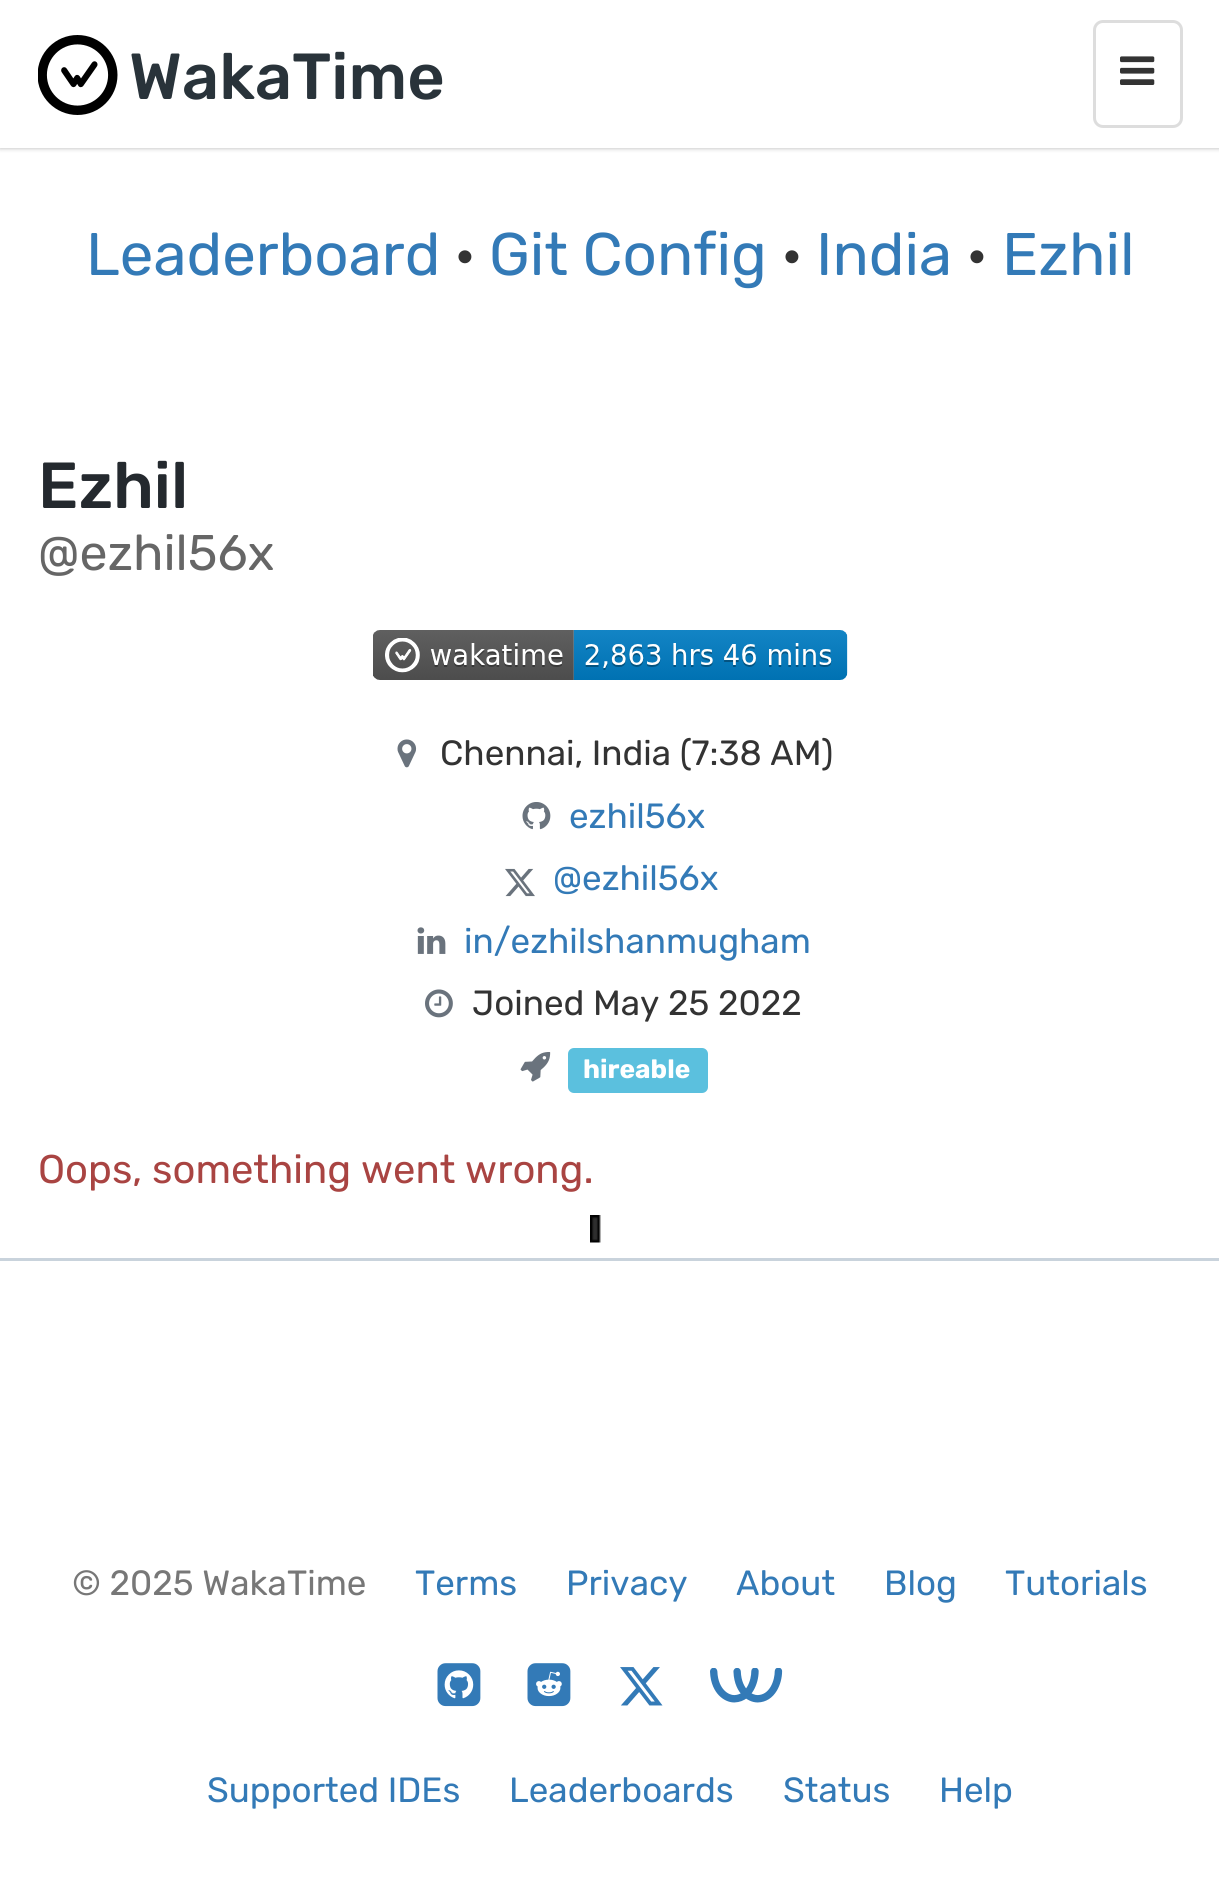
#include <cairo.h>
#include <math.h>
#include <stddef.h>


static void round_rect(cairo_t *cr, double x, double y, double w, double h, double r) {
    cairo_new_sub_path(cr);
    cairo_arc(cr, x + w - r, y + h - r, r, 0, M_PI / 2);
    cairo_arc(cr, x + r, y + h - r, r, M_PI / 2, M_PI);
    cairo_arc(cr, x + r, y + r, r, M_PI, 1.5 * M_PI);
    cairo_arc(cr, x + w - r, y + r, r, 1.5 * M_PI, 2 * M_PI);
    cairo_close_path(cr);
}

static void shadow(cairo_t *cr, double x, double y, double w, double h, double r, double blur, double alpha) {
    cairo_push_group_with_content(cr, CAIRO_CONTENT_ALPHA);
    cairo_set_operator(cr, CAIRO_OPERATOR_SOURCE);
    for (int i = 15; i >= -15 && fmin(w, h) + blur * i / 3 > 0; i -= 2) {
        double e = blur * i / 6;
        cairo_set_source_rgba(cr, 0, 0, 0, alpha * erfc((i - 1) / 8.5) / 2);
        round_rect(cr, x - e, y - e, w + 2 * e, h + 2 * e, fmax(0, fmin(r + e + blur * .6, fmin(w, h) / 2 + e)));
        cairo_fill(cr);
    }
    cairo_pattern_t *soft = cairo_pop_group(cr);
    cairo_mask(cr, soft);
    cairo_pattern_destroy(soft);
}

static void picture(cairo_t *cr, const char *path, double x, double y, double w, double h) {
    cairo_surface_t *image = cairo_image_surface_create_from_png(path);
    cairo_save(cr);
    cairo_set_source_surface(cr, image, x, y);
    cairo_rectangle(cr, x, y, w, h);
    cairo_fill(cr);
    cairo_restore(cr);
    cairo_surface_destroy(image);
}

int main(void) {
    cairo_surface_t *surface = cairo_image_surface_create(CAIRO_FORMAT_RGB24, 1219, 1899);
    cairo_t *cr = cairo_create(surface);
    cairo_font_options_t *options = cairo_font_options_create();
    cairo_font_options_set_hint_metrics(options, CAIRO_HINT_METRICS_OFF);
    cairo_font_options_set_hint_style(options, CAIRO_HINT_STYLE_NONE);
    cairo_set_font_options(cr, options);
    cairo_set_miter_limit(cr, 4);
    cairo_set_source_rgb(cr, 1, 1, 1);
    cairo_paint(cr);
    cairo_set_source_rgb(cr, 0, 0, 0);
    shadow(cr, 0, 0, 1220, 148, 0, 2.5, 0.3);
    cairo_set_source_rgb(cr, 1, 1, 1);
    cairo_rectangle(cr, 0, 0, 1219, 148);
    cairo_fill(cr);
    picture(cr, "img1.png", 38, 35, 80, 80);
    cairo_select_font_face(cr, "Rubik Medium", CAIRO_FONT_SLANT_NORMAL, CAIRO_FONT_WEIGHT_NORMAL);
    cairo_set_font_size(cr, 65);
    cairo_set_source_rgb(cr, 0.161, 0.2, 0.227);
    cairo_move_to(cr, 129, 99);
    cairo_show_text(cr, "WakaTime");
    round_rect(cr, 1094.5, 21.5, 87, 105, 8.5);
    cairo_set_source_rgb(cr, 0.867, 0.867, 0.867);
    cairo_set_line_width(cr, 3);
    cairo_stroke(cr);
    picture(cr, "img2.png", 1120, 56, 35, 29);
    cairo_select_font_face(cr, "Rubik", CAIRO_FONT_SLANT_NORMAL, CAIRO_FONT_WEIGHT_NORMAL);
    cairo_set_font_size(cr, 60);
    cairo_set_source_rgb(cr, 0.2, 0.478, 0.718);
    cairo_move_to(cr, 86, 275);
    cairo_show_text(cr, "Leaderboard");
    cairo_set_source_rgb(cr, 0.2, 0.2, 0.2);
    cairo_move_to(cr, 455, 275);
    cairo_show_text(cr, "·");
    cairo_set_source_rgb(cr, 0.2, 0.478, 0.718);
    cairo_move_to(cr, 489, 275);
    cairo_show_text(cr, "Git Config");
    cairo_set_source_rgb(cr, 0.2, 0.2, 0.2);
    cairo_move_to(cr, 782, 275);
    cairo_show_text(cr, "·");
    cairo_set_source_rgb(cr, 0.2, 0.478, 0.718);
    cairo_move_to(cr, 816, 275);
    cairo_show_text(cr, "India");
    cairo_set_source_rgb(cr, 0.2, 0.2, 0.2);
    cairo_move_to(cr, 967, 275);
    cairo_show_text(cr, "·");
    cairo_set_source_rgb(cr, 0.2, 0.478, 0.718);
    cairo_move_to(cr, 1002, 275);
    cairo_show_text(cr, "Ezhil");
    cairo_select_font_face(cr, "Rubik Medium", CAIRO_FONT_SLANT_NORMAL, CAIRO_FONT_WEIGHT_NORMAL);
    cairo_set_font_size(cr, 65);
    cairo_set_source_rgb(cr, 0.141, 0.161, 0.18);
    cairo_move_to(cr, 38, 508);
    cairo_show_text(cr, "Ezhil");
    cairo_select_font_face(cr, "Rubik", CAIRO_FONT_SLANT_NORMAL, CAIRO_FONT_WEIGHT_NORMAL);
    cairo_set_font_size(cr, 50);
    cairo_set_source_rgb(cr, 0.4, 0.4, 0.4);
    cairo_move_to(cr, 38, 570);
    cairo_show_text(cr, "@ezhil56x");
    picture(cr, "img3.png", 373, 630, 475, 50);
    picture(cr, "img4.png", 397, 739, 20, 29);
    cairo_set_font_size(cr, 35);
    cairo_set_source_rgb(cr, 0.2, 0.2, 0.2);
    cairo_move_to(cr, 440, 765);
    cairo_show_text(cr, "Chennai, India (7:38 AM)");
    picture(cr, "img5.png", 522, 802, 29, 28);
    cairo_set_source_rgb(cr, 0.2, 0.478, 0.718);
    cairo_move_to(cr, 569, 828);
    cairo_show_text(cr, "ezhil56x");
    picture(cr, "img6.png", 505, 868, 30, 29);
    cairo_move_to(cr, 553, 890);
    cairo_show_text(cr, "@ezhil56x");
    picture(cr, "img7.png", 417, 927, 29, 27);
    cairo_move_to(cr, 464, 953);
    cairo_show_text(cr, "in/ezhilshanmugham");
    picture(cr, "img8.png", 425, 989, 28, 29);
    cairo_set_source_rgb(cr, 0.2, 0.2, 0.2);
    cairo_move_to(cr, 472, 1015);
    cairo_show_text(cr, "Joined May 25 2022");
    picture(cr, "img9.png", 520, 1052, 31, 30);
    cairo_set_source_rgb(cr, 0.357, 0.753, 0.871);
    round_rect(cr, 568, 1048, 140, 45, 6);
    cairo_fill(cr);
    cairo_select_font_face(cr, "Rubik", CAIRO_FONT_SLANT_NORMAL, CAIRO_FONT_WEIGHT_BOLD);
    cairo_set_font_size(cr, 26.25);
    cairo_set_source_rgb(cr, 1, 1, 1);
    cairo_move_to(cr, 583, 1078);
    cairo_show_text(cr, "hireable");
    cairo_select_font_face(cr, "Rubik", CAIRO_FONT_SLANT_NORMAL, CAIRO_FONT_WEIGHT_NORMAL);
    cairo_set_font_size(cr, 40);
    cairo_set_source_rgb(cr, 0.663, 0.267, 0.259);
    cairo_move_to(cr, 38, 1183);
    cairo_show_text(cr, "Oops, something went wrong.");
    picture(cr, "img10.png", 590, 1215, 11, 28);
    cairo_set_source_rgb(cr, 0.788, 0.827, 0.863);
    cairo_rectangle(cr, 0, 1258, 1219, 3);
    cairo_fill(cr);
    cairo_set_font_size(cr, 35);
    cairo_set_source_rgb(cr, 0.467, 0.467, 0.467);
    cairo_move_to(cr, 72, 1595);
    cairo_show_text(cr, "© 2025 WakaTime");
    cairo_set_source_rgb(cr, 0.2, 0.478, 0.718);
    cairo_move_to(cr, 415, 1595);
    cairo_show_text(cr, "Terms");
    cairo_move_to(cr, 566, 1595);
    cairo_show_text(cr, "Privacy");
    cairo_move_to(cr, 736, 1595);
    cairo_show_text(cr, "About");
    cairo_move_to(cr, 884, 1595);
    cairo_show_text(cr, "Blog");
    cairo_move_to(cr, 1005, 1595);
    cairo_show_text(cr, "Tutorials");
    picture(cr, "img11.png", 437, 1663, 44, 44);
    picture(cr, "img12.png", 527, 1663, 44, 44);
    picture(cr, "img13.png", 620, 1667, 43, 39);
    picture(cr, "img14.png", 710, 1668, 73, 35);
    cairo_move_to(cr, 207, 1802);
    cairo_show_text(cr, "Supported IDEs");
    cairo_move_to(cr, 509, 1802);
    cairo_show_text(cr, "Leaderboards");
    cairo_move_to(cr, 783, 1802);
    cairo_show_text(cr, "Status");
    cairo_move_to(cr, 939, 1802);
    cairo_show_text(cr, "Help");
    cairo_surface_write_to_png(surface, "page.png");
    cairo_font_options_destroy(options);
    cairo_destroy(cr);
    cairo_surface_destroy(surface);
    return 0;
}
